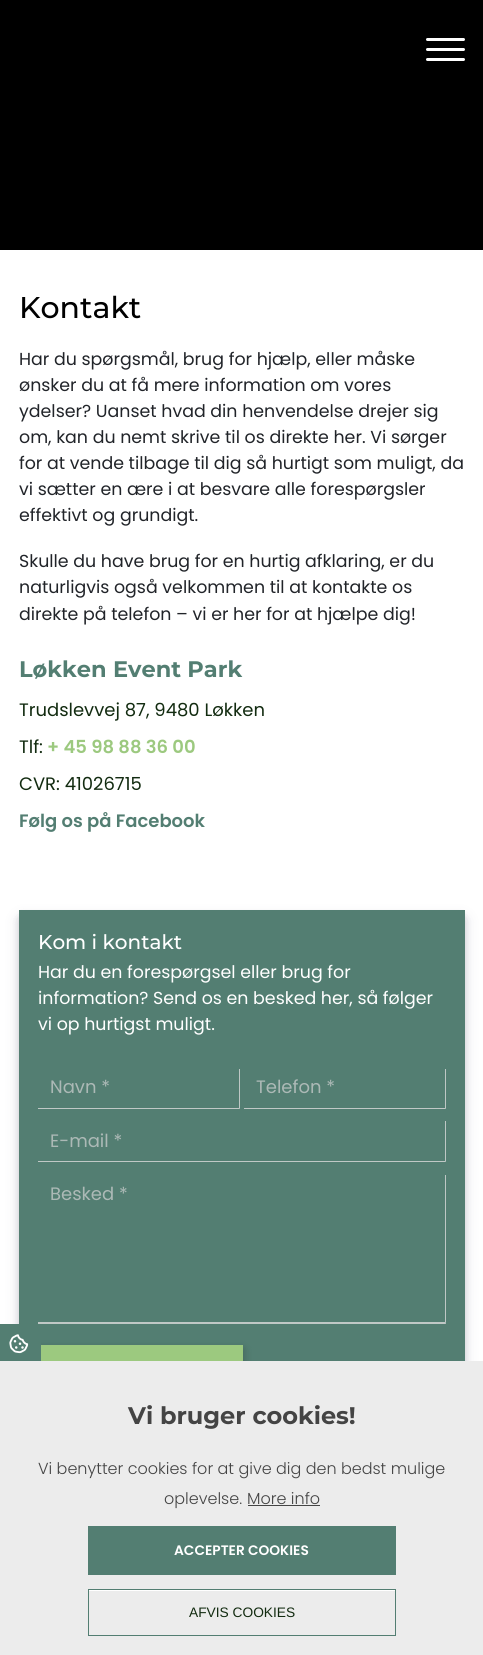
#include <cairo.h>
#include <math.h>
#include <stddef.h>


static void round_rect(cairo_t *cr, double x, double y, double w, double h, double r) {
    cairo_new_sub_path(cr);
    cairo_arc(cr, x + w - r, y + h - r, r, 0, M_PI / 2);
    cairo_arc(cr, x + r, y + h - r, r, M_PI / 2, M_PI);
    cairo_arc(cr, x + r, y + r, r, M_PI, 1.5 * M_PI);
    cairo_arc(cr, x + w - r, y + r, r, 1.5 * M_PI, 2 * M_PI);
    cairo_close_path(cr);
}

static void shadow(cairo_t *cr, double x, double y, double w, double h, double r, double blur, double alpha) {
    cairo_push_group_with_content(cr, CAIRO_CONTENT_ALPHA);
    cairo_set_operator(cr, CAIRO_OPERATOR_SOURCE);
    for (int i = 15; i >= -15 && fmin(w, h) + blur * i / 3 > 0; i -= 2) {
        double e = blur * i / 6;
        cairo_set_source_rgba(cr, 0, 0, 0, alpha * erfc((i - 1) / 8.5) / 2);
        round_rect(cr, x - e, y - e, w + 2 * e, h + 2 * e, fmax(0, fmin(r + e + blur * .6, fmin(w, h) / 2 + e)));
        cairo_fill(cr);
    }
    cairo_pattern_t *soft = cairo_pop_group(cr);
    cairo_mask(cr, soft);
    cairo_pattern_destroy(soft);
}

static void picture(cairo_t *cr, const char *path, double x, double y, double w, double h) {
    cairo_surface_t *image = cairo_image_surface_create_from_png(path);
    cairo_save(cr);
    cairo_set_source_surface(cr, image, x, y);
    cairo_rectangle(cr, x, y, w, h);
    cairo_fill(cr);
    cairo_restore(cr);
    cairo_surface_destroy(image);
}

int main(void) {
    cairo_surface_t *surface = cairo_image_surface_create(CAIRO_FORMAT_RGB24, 483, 1655);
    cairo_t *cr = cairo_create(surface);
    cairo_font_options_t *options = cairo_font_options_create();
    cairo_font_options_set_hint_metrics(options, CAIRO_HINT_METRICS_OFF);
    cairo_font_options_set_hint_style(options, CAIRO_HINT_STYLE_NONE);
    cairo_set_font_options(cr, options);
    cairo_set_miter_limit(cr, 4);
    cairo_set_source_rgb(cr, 1, 1, 1);
    cairo_paint(cr);
    cairo_set_source_rgb(cr, 0, 0, 0);
    cairo_rectangle(cr, 0, 0, 483, 250);
    cairo_fill(cr);
    cairo_set_source_rgb(cr, 1, 1, 1);
    round_rect(cr, 426, 48, 39, 3, 1.5);
    cairo_fill(cr);
    round_rect(cr, 426, 38, 39, 3, 1.5);
    cairo_fill(cr);
    round_rect(cr, 426, 58, 39, 3, 1.5);
    cairo_fill(cr);
    cairo_select_font_face(cr, "Montserrat Medium", CAIRO_FONT_SLANT_NORMAL, CAIRO_FONT_WEIGHT_NORMAL);
    cairo_set_font_size(cr, 30);
    cairo_set_source_rgb(cr, 0, 0, 0);
    cairo_move_to(cr, 19, 318);
    cairo_show_text(cr, "Kontakt");
    cairo_select_font_face(cr, "Poppins", CAIRO_FONT_SLANT_NORMAL, CAIRO_FONT_WEIGHT_NORMAL);
    cairo_set_font_size(cr, 17.4);
    cairo_set_source_rgb(cr, 0.129, 0.141, 0.161);
    cairo_move_to(cr, 19, 365);
    cairo_show_text(cr, "Har du spørgsmål, brug for hjælp, eller måske");
    cairo_move_to(cr, 19, 391);
    cairo_show_text(cr, "ønsker du at få mere information om vores");
    cairo_move_to(cr, 19, 417);
    cairo_show_text(cr, "ydelser? Uanset hvad din henvendelse drejer sig");
    cairo_move_to(cr, 19, 443);
    cairo_show_text(cr, "om, kan du nemt skrive til os direkte her. Vi sørger");
    cairo_move_to(cr, 19, 469);
    cairo_show_text(cr, "for at vende tilbage til dig så hurtigt som muligt, da");
    cairo_move_to(cr, 19, 495);
    cairo_show_text(cr, "vi sætter en ære i at besvare alle forespørgsler");
    cairo_move_to(cr, 19, 521);
    cairo_show_text(cr, "effektivt og grundigt.");
    cairo_move_to(cr, 19, 567);
    cairo_show_text(cr, "Skulle du have brug for en hurtig afklaring, er du");
    cairo_move_to(cr, 19, 593);
    cairo_show_text(cr, "naturligvis også velkommen til at kontakte os");
    cairo_move_to(cr, 19, 620);
    cairo_show_text(cr, "direkte på telefon – vi er her for at hjælpe dig!");
    cairo_select_font_face(cr, "Montserrat", CAIRO_FONT_SLANT_NORMAL, CAIRO_FONT_WEIGHT_BOLD);
    cairo_set_font_size(cr, 22.5);
    cairo_set_source_rgb(cr, 0.325, 0.494, 0.447);
    cairo_move_to(cr, 19, 677);
    cairo_show_text(cr, "Løkken Event Park");
    cairo_select_font_face(cr, "Poppins", CAIRO_FONT_SLANT_NORMAL, CAIRO_FONT_WEIGHT_NORMAL);
    cairo_set_font_size(cr, 18);
    cairo_set_source_rgb(cr, 0.071, 0.169, 0.063);
    cairo_move_to(cr, 19, 716);
    cairo_show_text(cr, "Trudslevvej 87, 9480 Løkken");
    cairo_move_to(cr, 19, 753);
    cairo_show_text(cr, "Tlf:");
    cairo_select_font_face(cr, "Poppins SemiBold", CAIRO_FONT_SLANT_NORMAL, CAIRO_FONT_WEIGHT_NORMAL);
    cairo_set_source_rgb(cr, 0.612, 0.788, 0.498);
    cairo_move_to(cr, 47, 753);
    cairo_show_text(cr, "+ 45 98 88 36 00");
    cairo_select_font_face(cr, "Poppins", CAIRO_FONT_SLANT_NORMAL, CAIRO_FONT_WEIGHT_NORMAL);
    cairo_set_source_rgb(cr, 0.071, 0.169, 0.063);
    cairo_move_to(cr, 19, 790);
    cairo_show_text(cr, "CVR: 41026715");
    cairo_select_font_face(cr, "Poppins SemiBold", CAIRO_FONT_SLANT_NORMAL, CAIRO_FONT_WEIGHT_NORMAL);
    cairo_set_source_rgb(cr, 0.325, 0.494, 0.447);
    cairo_move_to(cr, 19, 827);
    cairo_show_text(cr, "Følg os på Facebook");
    cairo_set_source_rgb(cr, 0, 0, 0);
    shadow(cr, 23, 918, 438, 506, 0, 4.5, 0.3);
    cairo_set_source_rgb(cr, 0.196, 0.196, 0.365);
    shadow(cr, 21, 920, 442, 509, 0, 7.5, 0.25);
    cairo_set_source_rgb(cr, 0.325, 0.494, 0.447);
    cairo_rectangle(cr, 19, 910, 446, 451);
    cairo_fill(cr);
    cairo_select_font_face(cr, "Montserrat Medium", CAIRO_FONT_SLANT_NORMAL, CAIRO_FONT_WEIGHT_NORMAL);
    cairo_set_font_size(cr, 20);
    cairo_set_source_rgb(cr, 1, 1, 1);
    cairo_move_to(cr, 38, 949);
    cairo_show_text(cr, "Kom i kontakt");
    cairo_select_font_face(cr, "Poppins", CAIRO_FONT_SLANT_NORMAL, CAIRO_FONT_WEIGHT_NORMAL);
    cairo_set_font_size(cr, 17.4);
    cairo_move_to(cr, 38, 978);
    cairo_show_text(cr, "Har du en forespørgsel eller brug for");
    cairo_move_to(cr, 38, 1004);
    cairo_show_text(cr, "information? Send os en besked her, så følger");
    cairo_move_to(cr, 38, 1030);
    cairo_show_text(cr, "vi op hurtigst muligt.");
    cairo_set_source_rgb(cr, 0.745, 0.78, 0.773);
    cairo_new_path(cr);
    cairo_move_to(cr, 240, 1069);
    cairo_line_to(cr, 240, 1109);
    cairo_line_to(cr, 239, 1108);
    cairo_line_to(cr, 239, 1069);
    cairo_close_path(cr);
    cairo_fill(cr);
    cairo_set_source_rgba(cr, 0.855, 0.855, 0.855, 0.8);
    cairo_new_path(cr);
    cairo_move_to(cr, 240, 1109);
    cairo_line_to(cr, 38, 1109);
    cairo_line_to(cr, 38, 1108);
    cairo_line_to(cr, 239, 1108);
    cairo_close_path(cr);
    cairo_fill(cr);
    cairo_set_font_size(cr, 18);
    cairo_set_source_rgb(cr, 0.675, 0.725, 0.714);
    cairo_move_to(cr, 50, 1093);
    cairo_show_text(cr, "Navn *");
    cairo_set_source_rgb(cr, 0.745, 0.78, 0.773);
    cairo_new_path(cr);
    cairo_move_to(cr, 446, 1069);
    cairo_line_to(cr, 446, 1109);
    cairo_line_to(cr, 445, 1108);
    cairo_line_to(cr, 445, 1069);
    cairo_close_path(cr);
    cairo_fill(cr);
    cairo_set_source_rgba(cr, 0.855, 0.855, 0.855, 0.8);
    cairo_new_path(cr);
    cairo_move_to(cr, 446, 1109);
    cairo_line_to(cr, 244, 1109);
    cairo_line_to(cr, 244, 1108);
    cairo_line_to(cr, 445, 1108);
    cairo_close_path(cr);
    cairo_fill(cr);
    cairo_set_source_rgb(cr, 0.675, 0.725, 0.714);
    cairo_move_to(cr, 256, 1093);
    cairo_show_text(cr, "Telefon *");
    cairo_set_source_rgb(cr, 0.745, 0.78, 0.773);
    cairo_new_path(cr);
    cairo_move_to(cr, 446, 1121);
    cairo_line_to(cr, 446, 1162);
    cairo_line_to(cr, 445, 1161);
    cairo_line_to(cr, 445, 1121);
    cairo_close_path(cr);
    cairo_fill(cr);
    cairo_set_source_rgba(cr, 0.855, 0.855, 0.855, 0.8);
    cairo_new_path(cr);
    cairo_move_to(cr, 446, 1162);
    cairo_line_to(cr, 38, 1162);
    cairo_line_to(cr, 38, 1161);
    cairo_line_to(cr, 445, 1161);
    cairo_close_path(cr);
    cairo_fill(cr);
    cairo_set_source_rgb(cr, 0.675, 0.725, 0.714);
    cairo_move_to(cr, 50, 1147);
    cairo_show_text(cr, "E-mail *");
    cairo_set_source_rgb(cr, 0.745, 0.78, 0.773);
    cairo_new_path(cr);
    cairo_move_to(cr, 446, 1175);
    cairo_line_to(cr, 446, 1324);
    cairo_line_to(cr, 445, 1322);
    cairo_line_to(cr, 445, 1175);
    cairo_close_path(cr);
    cairo_fill(cr);
    cairo_set_source_rgba(cr, 0.855, 0.855, 0.855, 0.8);
    cairo_new_path(cr);
    cairo_move_to(cr, 446, 1324);
    cairo_line_to(cr, 38, 1324);
    cairo_line_to(cr, 38, 1322);
    cairo_line_to(cr, 445, 1322);
    cairo_close_path(cr);
    cairo_fill(cr);
    cairo_set_source_rgb(cr, 0.675, 0.725, 0.714);
    cairo_move_to(cr, 50, 1200);
    cairo_show_text(cr, "Besked *");
    cairo_set_source_rgb(cr, 0, 0, 0);
    shadow(cr, 38, 1349, 205, 52, 0, 5, 0.24);
    cairo_set_source_rgb(cr, 0.612, 0.788, 0.498);
    cairo_rectangle(cr, 41, 1345, 202, 16);
    cairo_fill(cr);
    cairo_set_source_rgb(cr, 0.925, 0.925, 0.925);
    cairo_rectangle(cr, 0, 1361, 483, 294);
    cairo_fill(cr);
    cairo_set_source_rgb(cr, 0.325, 0.494, 0.447);
    cairo_rectangle(cr, 0, 1324, 41, 37);
    cairo_fill(cr);
    picture(cr, "img1.png", 9, 1334, 20, 20);
    cairo_select_font_face(cr, "Montserrat", CAIRO_FONT_SLANT_NORMAL, CAIRO_FONT_WEIGHT_BOLD);
    cairo_set_font_size(cr, 24);
    cairo_set_source_rgb(cr, 0.267, 0.267, 0.267);
    cairo_move_to(cr, 128, 1424);
    cairo_show_text(cr, "Vi bruger cookies!");
    cairo_select_font_face(cr, "Poppins Light", CAIRO_FONT_SLANT_NORMAL, CAIRO_FONT_WEIGHT_NORMAL);
    cairo_set_font_size(cr, 16);
    cairo_move_to(cr, 38, 1474);
    cairo_show_text(cr, "Vi benytter cookies for at give dig den bedst mulige");
    cairo_move_to(cr, 164, 1504);
    cairo_show_text(cr, "oplevelse.");
    cairo_move_to(cr, 247, 1504);
    cairo_show_text(cr, "More info");
    cairo_rectangle(cr, 248, 1505, 72, 1);
    cairo_fill(cr);
    cairo_set_source_rgb(cr, 0.325, 0.494, 0.447);
    cairo_rectangle(cr, 88, 1526, 308, 49);
    cairo_fill(cr);
    cairo_select_font_face(cr, "Poppins SemiBold", CAIRO_FONT_SLANT_NORMAL, CAIRO_FONT_WEIGHT_NORMAL);
    cairo_set_font_size(cr, 13.75);
    cairo_set_source_rgb(cr, 1, 1, 1);
    cairo_move_to(cr, 174, 1555);
    cairo_show_text(cr, "ACCEPTER COOKIES");
    cairo_rectangle(cr, 89, 1590, 306, 1);
    cairo_fill(cr);
    cairo_rectangle(cr, 88.5, 1589.5, 307, 46);
    cairo_set_source_rgb(cr, 0.325, 0.494, 0.447);
    cairo_set_line_width(cr, 1);
    cairo_stroke(cr);
    cairo_select_font_face(cr, "Liberation Sans", CAIRO_FONT_SLANT_NORMAL, CAIRO_FONT_WEIGHT_NORMAL);
    cairo_set_source_rgb(cr, 0.071, 0.169, 0.063);
    cairo_move_to(cr, 189, 1617);
    cairo_show_text(cr, "AFVIS COOKIES");
    cairo_surface_write_to_png(surface, "page.png");
    cairo_font_options_destroy(options);
    cairo_destroy(cr);
    cairo_surface_destroy(surface);
    return 0;
}
